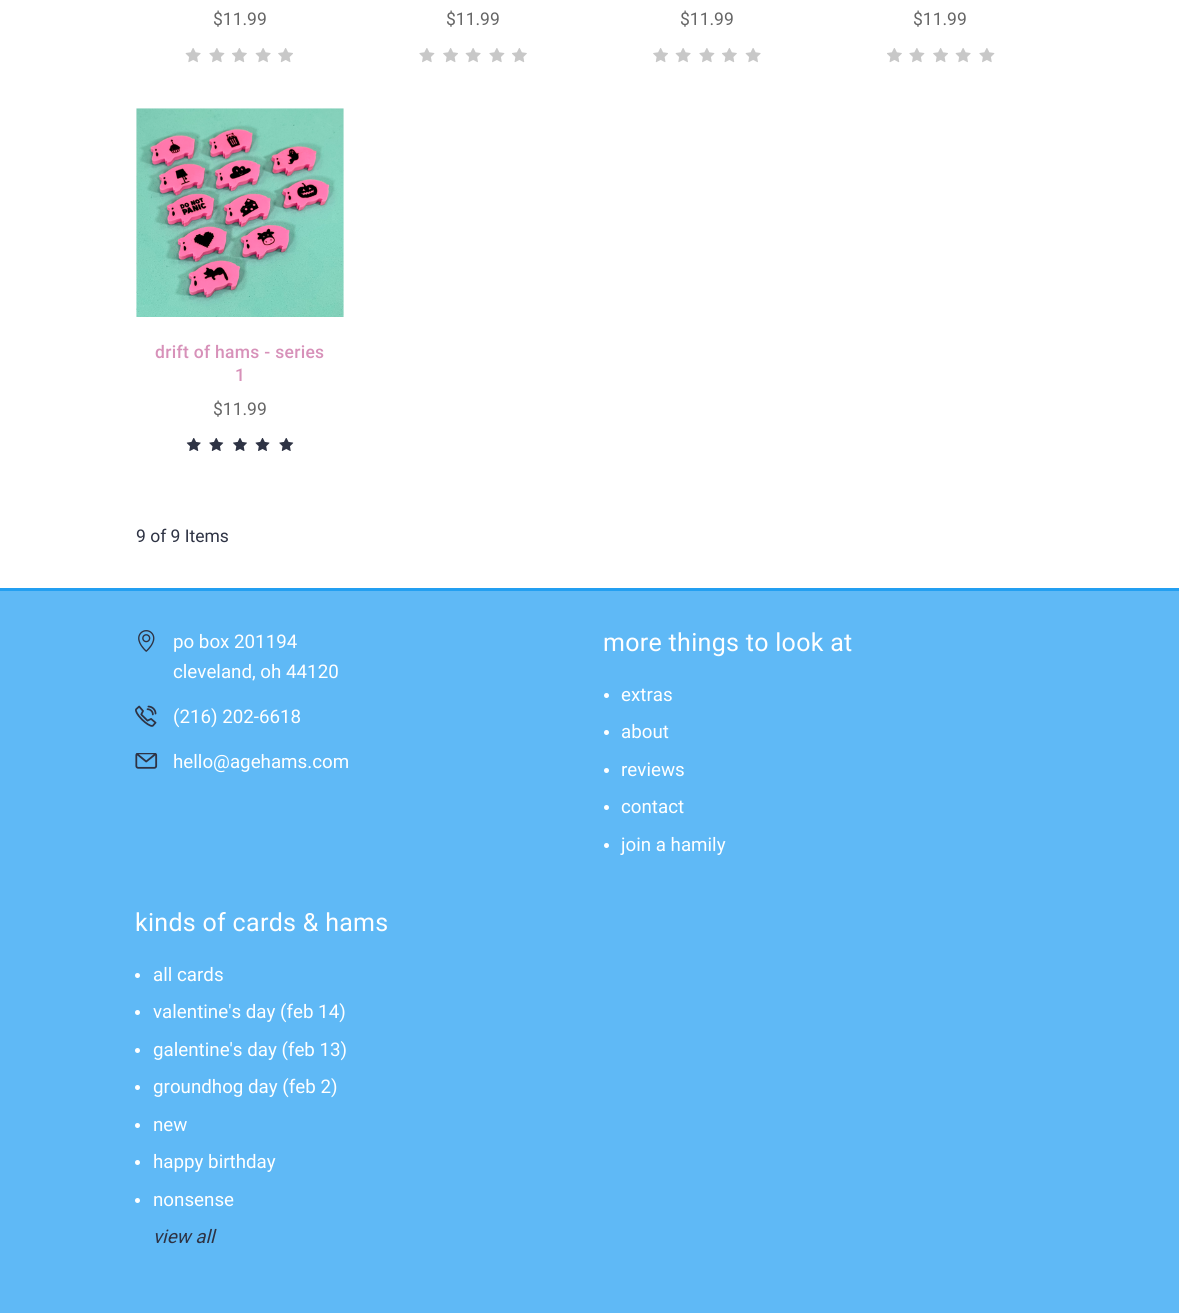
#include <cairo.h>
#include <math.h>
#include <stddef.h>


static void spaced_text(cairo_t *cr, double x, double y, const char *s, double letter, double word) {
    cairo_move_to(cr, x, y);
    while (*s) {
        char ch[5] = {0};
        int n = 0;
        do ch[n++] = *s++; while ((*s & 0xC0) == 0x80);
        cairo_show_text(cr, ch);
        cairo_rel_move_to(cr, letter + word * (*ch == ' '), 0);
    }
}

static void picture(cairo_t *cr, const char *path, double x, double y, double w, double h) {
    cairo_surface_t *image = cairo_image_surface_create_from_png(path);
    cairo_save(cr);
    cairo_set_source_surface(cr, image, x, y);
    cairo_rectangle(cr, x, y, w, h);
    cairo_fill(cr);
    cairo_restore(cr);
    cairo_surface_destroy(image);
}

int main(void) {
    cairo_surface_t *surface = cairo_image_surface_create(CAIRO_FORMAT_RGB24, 1179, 1313);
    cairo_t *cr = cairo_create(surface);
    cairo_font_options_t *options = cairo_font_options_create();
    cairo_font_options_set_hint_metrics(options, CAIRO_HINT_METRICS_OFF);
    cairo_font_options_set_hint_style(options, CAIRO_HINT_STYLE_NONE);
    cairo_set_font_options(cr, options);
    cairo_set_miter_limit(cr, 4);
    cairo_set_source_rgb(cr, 1, 1, 1);
    cairo_paint(cr);
    cairo_select_font_face(cr, "Roboto", CAIRO_FONT_SLANT_NORMAL, CAIRO_FONT_WEIGHT_NORMAL);
    cairo_set_font_size(cr, 17.5);
    cairo_set_source_rgb(cr, 0.4, 0.4, 0.4);
    cairo_move_to(cr, 213, 25);
    cairo_show_text(cr, "$11.99");
    picture(cr, "img1.png", 185, 48, 16, 15);
    picture(cr, "img2.png", 209, 48, 16, 15);
    picture(cr, "img3.png", 232, 48, 15, 15);
    picture(cr, "img1.png", 255, 48, 16, 15);
    picture(cr, "img4.png", 278, 48, 15, 15);
    cairo_move_to(cr, 446, 25);
    cairo_show_text(cr, "$11.99");
    picture(cr, "img2.png", 419, 48, 16, 15);
    picture(cr, "img4.png", 443, 48, 15, 15);
    picture(cr, "img1.png", 465, 48, 16, 15);
    picture(cr, "img2.png", 489, 48, 16, 15);
    picture(cr, "img3.png", 512, 48, 15, 15);
    cairo_move_to(cr, 680, 25);
    cairo_show_text(cr, "$11.99");
    picture(cr, "img4.png", 653, 48, 15, 15);
    picture(cr, "img1.png", 675, 48, 16, 15);
    picture(cr, "img2.png", 699, 48, 16, 15);
    picture(cr, "img3.png", 722, 48, 15, 15);
    picture(cr, "img1.png", 745, 48, 16, 15);
    cairo_move_to(cr, 913, 25);
    cairo_show_text(cr, "$11.99");
    picture(cr, "img3.png", 887, 48, 15, 15);
    picture(cr, "img2.png", 909, 48, 16, 15);
    picture(cr, "img4.png", 933, 48, 15, 15);
    picture(cr, "img1.png", 955, 48, 16, 15);
    picture(cr, "img2.png", 979, 48, 16, 15);
    picture(cr, "img5.png", 136, 108, 208, 209);
    cairo_select_font_face(cr, "Roboto Medium", CAIRO_FONT_SLANT_NORMAL, CAIRO_FONT_WEIGHT_NORMAL);
    cairo_set_source_rgb(cr, 0.843, 0.569, 0.725);
    spaced_text(cr, 155, 358, "drift of hams - series", 0.3, 0);
    spaced_text(cr, 235, 381, "1", 0.3, 0);
    cairo_select_font_face(cr, "Roboto", CAIRO_FONT_SLANT_NORMAL, CAIRO_FONT_WEIGHT_NORMAL);
    cairo_set_source_rgb(cr, 0.4, 0.4, 0.4);
    cairo_move_to(cr, 213, 415);
    cairo_show_text(cr, "$11.99");
    picture(cr, "img6.png", 186, 438, 15, 13);
    picture(cr, "img7.png", 209, 438, 15, 13);
    picture(cr, "img8.png", 233, 438, 14, 13);
    picture(cr, "img9.png", 255, 438, 15, 13);
    picture(cr, "img7.png", 279, 438, 15, 13);
    cairo_set_source_rgb(cr, 0.18, 0.2, 0.267);
    cairo_move_to(cr, 136, 542);
    cairo_show_text(cr, "9 of 9 Items");
    cairo_set_source_rgb(cr, 0.373, 0.725, 0.961);
    cairo_rectangle(cr, 0, 591, 1179, 722);
    cairo_fill(cr);
    cairo_set_source_rgb(cr, 0.137, 0.624, 0.945);
    cairo_rectangle(cr, 0, 588, 1179, 3);
    cairo_fill(cr);
    picture(cr, "img10.png", 138, 630, 17, 22);
    cairo_set_font_size(cr, 18.75);
    cairo_set_source_rgb(cr, 1, 1, 1);
    cairo_move_to(cr, 173, 648);
    cairo_show_text(cr, "po box 201194");
    cairo_move_to(cr, 173, 678);
    cairo_show_text(cr, "cleveland, oh 44120");
    picture(cr, "img11.png", 135, 705, 22, 22);
    cairo_move_to(cr, 173, 723);
    cairo_show_text(cr, "(216) 202-6618");
    picture(cr, "img12.png", 135, 753, 23, 16);
    cairo_move_to(cr, 173, 768);
    cairo_show_text(cr, "hello@agehams.com");
    cairo_set_font_size(cr, 25);
    spaced_text(cr, 603, 651, "more things to look at", 0.3, 0);
    cairo_new_path(cr);
    cairo_arc(cr, 606.5, 695.5, 2.5, 0, 2 * M_PI);
    cairo_fill(cr);
    cairo_set_font_size(cr, 18.75);
    cairo_move_to(cr, 621, 701);
    cairo_show_text(cr, "extras");
    cairo_new_path(cr);
    cairo_arc(cr, 606.5, 732.5, 2.5, 0, 2 * M_PI);
    cairo_fill(cr);
    cairo_move_to(cr, 621, 738);
    cairo_show_text(cr, "about");
    cairo_new_path(cr);
    cairo_arc(cr, 606.5, 770.5, 2.5, 0, 2 * M_PI);
    cairo_fill(cr);
    cairo_move_to(cr, 621, 776);
    cairo_show_text(cr, "reviews");
    cairo_new_path(cr);
    cairo_arc(cr, 606.5, 807.5, 2.5, 0, 2 * M_PI);
    cairo_fill(cr);
    cairo_move_to(cr, 621, 813);
    cairo_show_text(cr, "contact");
    cairo_new_path(cr);
    cairo_arc(cr, 606.5, 845.5, 2.5, 0, 2 * M_PI);
    cairo_fill(cr);
    cairo_move_to(cr, 621, 851);
    cairo_show_text(cr, "join a hamily");
    cairo_set_font_size(cr, 25);
    spaced_text(cr, 135, 931, "kinds of cards & hams", 0.3, 0);
    cairo_new_path(cr);
    cairo_arc(cr, 137.5, 975.5, 2.5, 0, 2 * M_PI);
    cairo_fill(cr);
    cairo_set_font_size(cr, 18.75);
    cairo_move_to(cr, 153, 981);
    cairo_show_text(cr, "all cards");
    cairo_new_path(cr);
    cairo_arc(cr, 137.5, 1012.5, 2.5, 0, 2 * M_PI);
    cairo_fill(cr);
    cairo_move_to(cr, 153, 1018);
    cairo_show_text(cr, "valentine's day (feb 14)");
    cairo_new_path(cr);
    cairo_arc(cr, 137.5, 1050.5, 2.5, 0, 2 * M_PI);
    cairo_fill(cr);
    cairo_move_to(cr, 153, 1056);
    cairo_show_text(cr, "galentine's day (feb 13)");
    cairo_new_path(cr);
    cairo_arc(cr, 137.5, 1087.5, 2.5, 0, 2 * M_PI);
    cairo_fill(cr);
    cairo_move_to(cr, 153, 1093);
    cairo_show_text(cr, "groundhog day (feb 2)");
    cairo_new_path(cr);
    cairo_arc(cr, 137.5, 1125.5, 2.5, 0, 2 * M_PI);
    cairo_fill(cr);
    cairo_move_to(cr, 153, 1131);
    cairo_show_text(cr, "new");
    cairo_new_path(cr);
    cairo_arc(cr, 137.5, 1162.5, 2.5, 0, 2 * M_PI);
    cairo_fill(cr);
    cairo_move_to(cr, 153, 1168);
    cairo_show_text(cr, "happy birthday");
    cairo_new_path(cr);
    cairo_arc(cr, 137.5, 1200.5, 2.5, 0, 2 * M_PI);
    cairo_fill(cr);
    cairo_move_to(cr, 153, 1206);
    cairo_show_text(cr, "nonsense");
    cairo_select_font_face(cr, "Roboto", CAIRO_FONT_SLANT_ITALIC, CAIRO_FONT_WEIGHT_NORMAL);
    cairo_set_source_rgb(cr, 0.18, 0.2, 0.267);
    cairo_move_to(cr, 153, 1243);
    cairo_show_text(cr, "view all");
    cairo_surface_write_to_png(surface, "page.png");
    cairo_font_options_destroy(options);
    cairo_destroy(cr);
    cairo_surface_destroy(surface);
    return 0;
}
